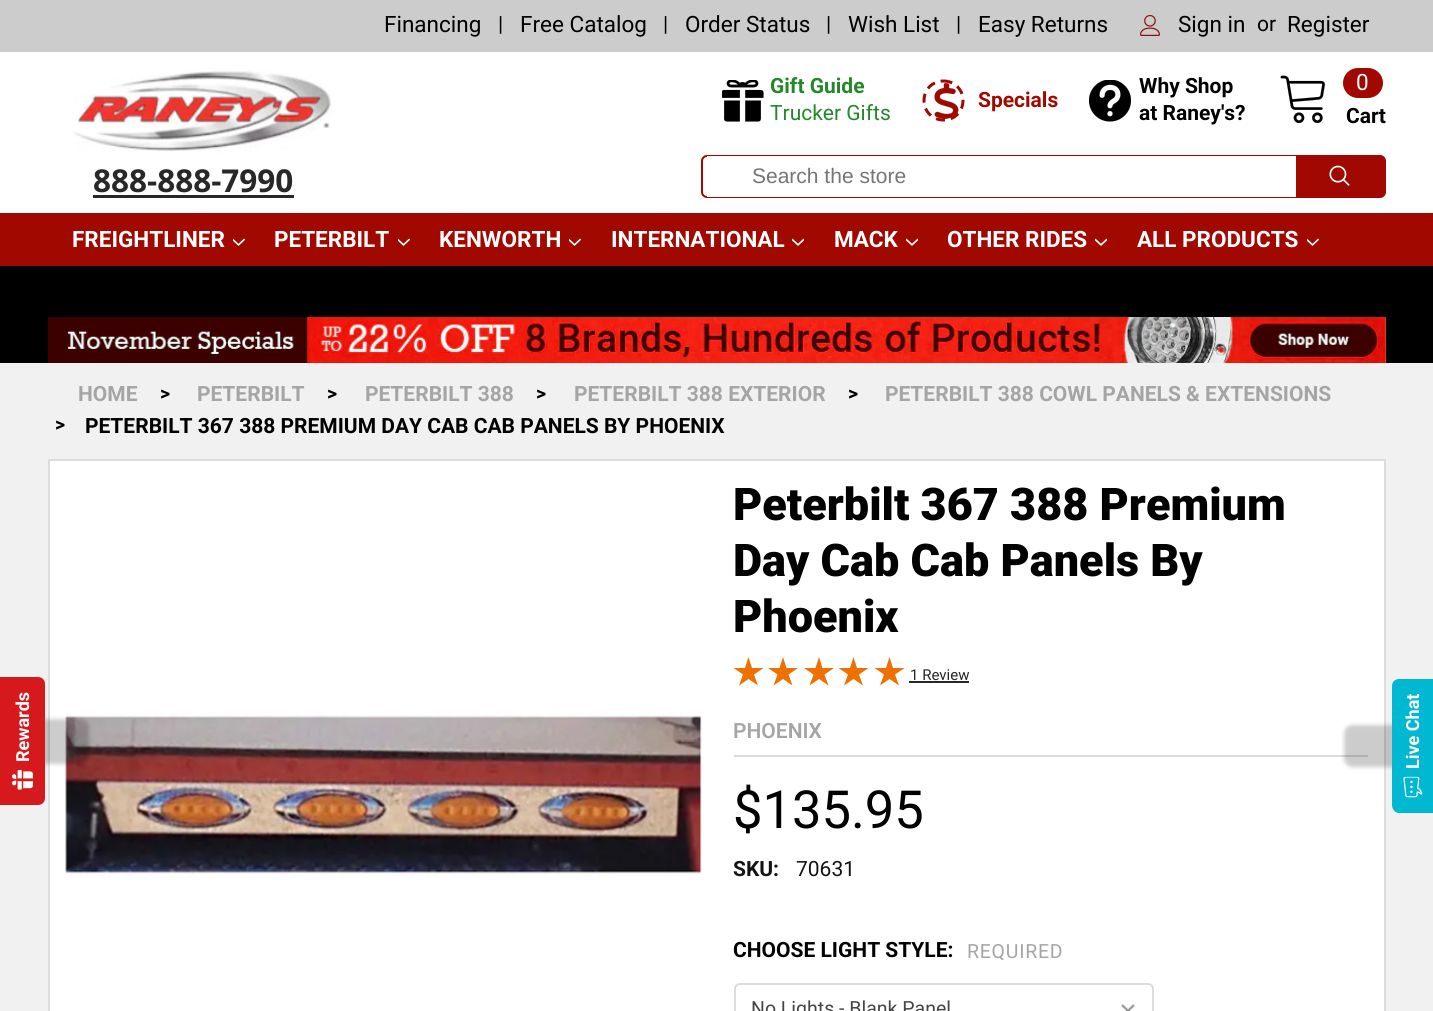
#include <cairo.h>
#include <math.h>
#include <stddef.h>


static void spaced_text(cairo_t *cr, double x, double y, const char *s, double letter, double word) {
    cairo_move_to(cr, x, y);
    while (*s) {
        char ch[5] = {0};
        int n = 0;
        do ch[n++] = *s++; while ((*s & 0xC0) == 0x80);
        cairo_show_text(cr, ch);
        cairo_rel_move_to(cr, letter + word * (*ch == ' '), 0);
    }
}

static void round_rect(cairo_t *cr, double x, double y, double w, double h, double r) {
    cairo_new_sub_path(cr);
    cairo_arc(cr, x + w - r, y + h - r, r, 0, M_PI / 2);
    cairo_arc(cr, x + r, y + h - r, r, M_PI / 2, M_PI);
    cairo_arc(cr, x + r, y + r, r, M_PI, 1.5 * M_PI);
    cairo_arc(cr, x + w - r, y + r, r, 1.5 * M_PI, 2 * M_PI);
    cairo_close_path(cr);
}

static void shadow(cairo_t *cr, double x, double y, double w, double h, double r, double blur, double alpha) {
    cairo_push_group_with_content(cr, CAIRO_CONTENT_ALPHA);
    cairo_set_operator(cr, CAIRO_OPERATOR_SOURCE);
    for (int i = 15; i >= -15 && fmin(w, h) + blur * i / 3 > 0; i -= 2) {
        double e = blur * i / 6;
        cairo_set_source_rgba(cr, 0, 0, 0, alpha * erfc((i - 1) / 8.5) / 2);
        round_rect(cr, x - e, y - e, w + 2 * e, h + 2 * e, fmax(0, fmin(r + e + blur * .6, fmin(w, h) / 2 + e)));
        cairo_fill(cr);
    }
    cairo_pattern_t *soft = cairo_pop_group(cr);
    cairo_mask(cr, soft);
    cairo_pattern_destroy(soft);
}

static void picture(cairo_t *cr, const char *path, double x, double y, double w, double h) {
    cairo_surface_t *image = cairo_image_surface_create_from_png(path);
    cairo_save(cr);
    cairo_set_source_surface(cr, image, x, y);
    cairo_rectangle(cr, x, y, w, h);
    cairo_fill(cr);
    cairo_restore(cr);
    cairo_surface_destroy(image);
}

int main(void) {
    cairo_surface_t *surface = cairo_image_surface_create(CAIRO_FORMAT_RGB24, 1433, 1011);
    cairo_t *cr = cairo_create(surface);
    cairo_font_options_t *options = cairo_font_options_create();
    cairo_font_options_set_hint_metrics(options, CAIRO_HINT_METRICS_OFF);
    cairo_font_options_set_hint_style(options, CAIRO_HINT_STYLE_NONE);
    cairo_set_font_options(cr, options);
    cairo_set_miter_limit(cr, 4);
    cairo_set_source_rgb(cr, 0.945, 0.945, 0.949);
    cairo_paint(cr);
    cairo_set_source_rgb(cr, 1, 1, 1);
    cairo_rectangle(cr, 0, 52, 1433, 161);
    cairo_fill(cr);
    cairo_set_source_rgb(cr, 0.8, 0.8, 0.8);
    cairo_rectangle(cr, 0, 0, 1433, 52);
    cairo_fill(cr);
    cairo_select_font_face(cr, "Roboto", CAIRO_FONT_SLANT_NORMAL, CAIRO_FONT_WEIGHT_NORMAL);
    cairo_set_font_size(cr, 22.5);
    cairo_set_source_rgb(cr, 0, 0, 0);
    cairo_move_to(cr, 384, 32);
    cairo_show_text(cr, "Financing");
    cairo_set_font_size(cr, 21);
    cairo_move_to(cr, 498, 31);
    cairo_show_text(cr, "|");
    cairo_set_font_size(cr, 22.5);
    cairo_move_to(cr, 520, 32);
    cairo_show_text(cr, "Free Catalog");
    cairo_set_font_size(cr, 21);
    cairo_move_to(cr, 663, 31);
    cairo_show_text(cr, "|");
    cairo_set_font_size(cr, 22.5);
    cairo_move_to(cr, 685, 32);
    cairo_show_text(cr, "Order Status");
    cairo_set_font_size(cr, 21);
    cairo_move_to(cr, 826, 31);
    cairo_show_text(cr, "|");
    cairo_set_font_size(cr, 22.5);
    cairo_move_to(cr, 848, 32);
    cairo_show_text(cr, "Wish List");
    cairo_set_font_size(cr, 21);
    cairo_move_to(cr, 956, 31);
    cairo_show_text(cr, "|");
    cairo_set_font_size(cr, 22.5);
    cairo_move_to(cr, 978, 32);
    cairo_show_text(cr, "Easy Returns");
    picture(cr, "img1.png", 1140, 15, 20, 21);
    cairo_move_to(cr, 1178, 32);
    cairo_show_text(cr, "Sign in");
    cairo_set_font_size(cr, 21);
    cairo_move_to(cr, 1257, 31);
    cairo_show_text(cr, "or");
    cairo_set_font_size(cr, 22.5);
    cairo_move_to(cr, 1287, 32);
    cairo_show_text(cr, "Register");
    picture(cr, "img2.png", 73, 70, 261, 83);
    picture(cr, "img3.png", 722, 80, 42, 42);
    cairo_select_font_face(cr, "Roboto", CAIRO_FONT_SLANT_NORMAL, CAIRO_FONT_WEIGHT_BOLD);
    cairo_set_font_size(cr, 21);
    cairo_set_source_rgb(cr, 0.141, 0.533, 0.161);
    cairo_move_to(cr, 770, 93);
    cairo_show_text(cr, "Gift Guide");
    cairo_select_font_face(cr, "Roboto", CAIRO_FONT_SLANT_NORMAL, CAIRO_FONT_WEIGHT_NORMAL);
    cairo_move_to(cr, 770, 120);
    cairo_show_text(cr, "Trucker Gifts");
    cairo_new_path(cr);
    cairo_move_to(cr, 943.5, 81);
    cairo_curve_to(cr, 954.5, 81, 963, 89.5, 963, 100.5);
    cairo_curve_to(cr, 963, 111.5, 954.5, 120, 943.5, 120);
    cairo_curve_to(cr, 932.5, 120, 924, 111.5, 924, 100.5);
    cairo_curve_to(cr, 924, 89.5, 932.5, 81, 943.5, 81);
    cairo_close_path(cr);
    cairo_set_source_rgb(cr, 0.631, 0.035, 0);
    cairo_set_line_width(cr, 3);
    cairo_set_dash(cr, (double[]){9, 6}, 2, 0);
    cairo_stroke(cr);
    picture(cr, "img4.png", 934, 83, 25, 36);
    cairo_select_font_face(cr, "Roboto", CAIRO_FONT_SLANT_NORMAL, CAIRO_FONT_WEIGHT_BOLD);
    cairo_move_to(cr, 978, 107);
    cairo_show_text(cr, "Specials");
    picture(cr, "img5.png", 1089, 80, 42, 42);
    cairo_set_source_rgb(cr, 0, 0, 0);
    cairo_move_to(cr, 1139, 93);
    cairo_show_text(cr, "Why Shop");
    cairo_move_to(cr, 1139, 120);
    cairo_show_text(cr, "at Raney's?");
    picture(cr, "img6.png", 1280, 75, 45, 48);
    cairo_set_source_rgb(cr, 0.631, 0.035, 0);
    round_rect(cr, 1343, 68, 40, 30, 15);
    cairo_fill(cr);
    cairo_select_font_face(cr, "Roboto", CAIRO_FONT_SLANT_NORMAL, CAIRO_FONT_WEIGHT_NORMAL);
    cairo_set_font_size(cr, 22.5);
    cairo_set_source_rgb(cr, 1, 1, 1);
    cairo_move_to(cr, 1356, 90);
    cairo_show_text(cr, "0");
    cairo_select_font_face(cr, "Roboto", CAIRO_FONT_SLANT_NORMAL, CAIRO_FONT_WEIGHT_BOLD);
    cairo_set_font_size(cr, 21);
    cairo_set_source_rgb(cr, 0, 0, 0);
    cairo_move_to(cr, 1346, 123);
    cairo_show_text(cr, "Cart");
    cairo_select_font_face(cr, "Open Sans", CAIRO_FONT_SLANT_NORMAL, CAIRO_FONT_WEIGHT_BOLD);
    cairo_set_font_size(cr, 31.5);
    cairo_set_source_rgb(cr, 0.157, 0.157, 0.157);
    cairo_move_to(cr, 93, 192);
    cairo_show_text(cr, "888-888-7990");
    cairo_rectangle(cr, 93, 195, 201, 3);
    cairo_fill(cr);
    round_rect(cr, 702, 156, 683, 41, 5);
    cairo_set_source_rgb(cr, 0.631, 0.035, 0.004);
    cairo_set_line_width(cr, 2);
    cairo_set_dash(cr, NULL, 0, 0);
    cairo_stroke(cr);
    cairo_set_source_rgb(cr, 1, 1, 1);
    cairo_rectangle(cr, 707, 156, 589, 41);
    cairo_fill(cr);
    cairo_select_font_face(cr, "Liberation Sans", CAIRO_FONT_SLANT_NORMAL, CAIRO_FONT_WEIGHT_NORMAL);
    cairo_set_font_size(cr, 21);
    cairo_set_source_rgb(cr, 0.459, 0.459, 0.459);
    cairo_move_to(cr, 752, 183);
    cairo_show_text(cr, "Search the store");
    cairo_set_source_rgb(cr, 0.631, 0.035, 0.004);
    cairo_new_path(cr);
    cairo_move_to(cr, 1296, 156);
    cairo_line_to(cr, 1379, 156);
    cairo_curve_to(cr, 1382.5, 156, 1385, 158.5, 1385, 162);
    cairo_line_to(cr, 1385, 191);
    cairo_curve_to(cr, 1385, 194.5, 1382.5, 197, 1379, 197);
    cairo_line_to(cr, 1296, 197);
    cairo_close_path(cr);
    cairo_fill(cr);
    picture(cr, "img7.png", 1329, 165, 21, 21);
    cairo_set_source_rgb(cr, 0.631, 0.035, 0);
    cairo_rectangle(cr, 0, 213, 1433, 53);
    cairo_fill(cr);
    cairo_select_font_face(cr, "Roboto", CAIRO_FONT_SLANT_NORMAL, CAIRO_FONT_WEIGHT_BOLD);
    cairo_set_font_size(cr, 22.5);
    cairo_set_source_rgb(cr, 1, 1, 1);
    cairo_move_to(cr, 72, 247);
    cairo_show_text(cr, "FREIGHTLINER");
    picture(cr, "img8.png", 233, 238, 12, 8);
    cairo_move_to(cr, 274, 247);
    cairo_show_text(cr, "PETERBILT");
    picture(cr, "img8.png", 398, 238, 12, 8);
    cairo_move_to(cr, 439, 247);
    cairo_show_text(cr, "KENWORTH");
    picture(cr, "img8.png", 569, 238, 12, 8);
    cairo_move_to(cr, 611, 247);
    cairo_show_text(cr, "INTERNATIONAL");
    picture(cr, "img9.png", 792, 238, 12, 8);
    cairo_move_to(cr, 834, 247);
    cairo_show_text(cr, "MACK");
    picture(cr, "img9.png", 906, 238, 12, 8);
    cairo_move_to(cr, 947, 247);
    cairo_show_text(cr, "OTHER RIDES");
    picture(cr, "img9.png", 1095, 238, 12, 8);
    cairo_move_to(cr, 1137, 247);
    cairo_show_text(cr, "ALL PRODUCTS");
    picture(cr, "img8.png", 1307, 238, 12, 8);
    cairo_set_source_rgb(cr, 0, 0, 0);
    cairo_rectangle(cr, 0, 266, 1433, 97);
    cairo_fill(cr);
    picture(cr, "img10.png", 48, 317, 1338, 46);
    cairo_set_source_rgb(cr, 1, 1, 1);
    cairo_rectangle(cr, 49, 460, 1336, 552);
    cairo_fill_preserve(cr);
    cairo_set_source_rgb(cr, 0.863, 0.863, 0.863);
    cairo_stroke(cr);
    picture(cr, "img12.png", 65, 712, 637, 166);
    cairo_set_source_rgb(cr, 0, 0, 0);
    shadow(cr, -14, 719, 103, 45, 8, 2, 0.2);
    cairo_set_source_rgb(cr, 0.835, 0.098, 0.114);
    cairo_new_path(cr);
    cairo_move_to(cr, 0, 805);
    cairo_line_to(cr, 0, 677);
    cairo_line_to(cr, 38, 677);
    cairo_curve_to(cr, 42, 677, 45, 680, 45, 684);
    cairo_line_to(cr, 45, 798);
    cairo_curve_to(cr, 45, 802, 42, 805, 38, 805);
    cairo_close_path(cr);
    cairo_fill(cr);
    cairo_set_font_size(cr, 18);
    cairo_set_source_rgb(cr, 1, 1, 1);
    cairo_save(cr);
    cairo_translate(cr, 29, 762);
    cairo_rotate(cr, -90 * M_PI / 180);
    cairo_move_to(cr, 0, 0);
    cairo_show_text(cr, "Rewards");
    cairo_restore(cr);
    picture(cr, "img11.png", 12, 770, 21, 20);
    cairo_set_font_size(cr, 21);
    cairo_set_source_rgb(cr, 0.647, 0.647, 0.647);
    cairo_move_to(cr, 78, 401);
    cairo_show_text(cr, "HOME");
    cairo_set_font_size(cr, 19.5);
    cairo_set_source_rgb(cr, 0, 0, 0);
    cairo_move_to(cr, 160, 400);
    cairo_show_text(cr, ">");
    cairo_set_font_size(cr, 21);
    cairo_set_source_rgb(cr, 0.647, 0.647, 0.647);
    cairo_move_to(cr, 197, 401);
    cairo_show_text(cr, "PETERBILT");
    cairo_set_font_size(cr, 19.5);
    cairo_set_source_rgb(cr, 0, 0, 0);
    cairo_move_to(cr, 327, 400);
    cairo_show_text(cr, ">");
    cairo_set_font_size(cr, 21);
    cairo_set_source_rgb(cr, 0.647, 0.647, 0.647);
    cairo_move_to(cr, 365, 401);
    cairo_show_text(cr, "PETERBILT 388");
    cairo_set_font_size(cr, 19.5);
    cairo_set_source_rgb(cr, 0, 0, 0);
    cairo_move_to(cr, 536, 400);
    cairo_show_text(cr, ">");
    cairo_set_font_size(cr, 21);
    cairo_set_source_rgb(cr, 0.647, 0.647, 0.647);
    cairo_move_to(cr, 574, 401);
    cairo_show_text(cr, "PETERBILT 388 EXTERIOR");
    cairo_set_font_size(cr, 19.5);
    cairo_set_source_rgb(cr, 0, 0, 0);
    cairo_move_to(cr, 848, 400);
    cairo_show_text(cr, ">");
    cairo_set_font_size(cr, 21);
    cairo_set_source_rgb(cr, 0.647, 0.647, 0.647);
    cairo_move_to(cr, 885, 401);
    cairo_show_text(cr, "PETERBILT 388 COWL PANELS & EXTENSIONS");
    cairo_set_font_size(cr, 19.5);
    cairo_set_source_rgb(cr, 0, 0, 0);
    cairo_move_to(cr, 55, 431);
    cairo_show_text(cr, ">");
    cairo_set_font_size(cr, 21);
    cairo_move_to(cr, 85, 433);
    cairo_show_text(cr, "PETERBILT 367 388 PREMIUM DAY CAB CAB PANELS BY PHOENIX");
    cairo_select_font_face(cr, "Roboto Black", CAIRO_FONT_SLANT_NORMAL, CAIRO_FONT_WEIGHT_NORMAL);
    cairo_set_font_size(cr, 45);
    cairo_move_to(cr, 733, 520);
    cairo_show_text(cr, "Peterbilt 367 388 Premium");
    cairo_move_to(cr, 733, 576);
    cairo_show_text(cr, "Day Cab Cab Panels By");
    cairo_move_to(cr, 733, 632);
    cairo_show_text(cr, "Phoenix");
    cairo_set_source_rgb(cr, 0.922, 0.443, 0);
    cairo_new_path(cr);
    cairo_move_to(cr, 748.5, 657);
    cairo_line_to(cr, 752, 668);
    cairo_line_to(cr, 763.5, 668);
    cairo_line_to(cr, 754, 674.5);
    cairo_line_to(cr, 758, 685.5);
    cairo_line_to(cr, 748.5, 679);
    cairo_line_to(cr, 739, 685.5);
    cairo_line_to(cr, 743, 674.5);
    cairo_line_to(cr, 733.5, 668);
    cairo_line_to(cr, 745, 668);
    cairo_close_path(cr);
    cairo_fill(cr);
    cairo_new_path(cr);
    cairo_move_to(cr, 783, 657);
    cairo_line_to(cr, 786.5, 668);
    cairo_line_to(cr, 798, 668);
    cairo_line_to(cr, 788.5, 674.5);
    cairo_line_to(cr, 792.5, 685.5);
    cairo_line_to(cr, 783, 679);
    cairo_line_to(cr, 773.5, 685.5);
    cairo_line_to(cr, 777.5, 674.5);
    cairo_line_to(cr, 768, 668);
    cairo_line_to(cr, 779.5, 668);
    cairo_close_path(cr);
    cairo_fill(cr);
    cairo_new_path(cr);
    cairo_move_to(cr, 819, 657);
    cairo_line_to(cr, 822.5, 668);
    cairo_line_to(cr, 834, 668);
    cairo_line_to(cr, 824.5, 674.5);
    cairo_line_to(cr, 828.5, 685.5);
    cairo_line_to(cr, 819, 679);
    cairo_line_to(cr, 809.5, 685.5);
    cairo_line_to(cr, 813.5, 674.5);
    cairo_line_to(cr, 804, 668);
    cairo_line_to(cr, 815.5, 668);
    cairo_close_path(cr);
    cairo_fill(cr);
    cairo_new_path(cr);
    cairo_move_to(cr, 853.5, 657);
    cairo_line_to(cr, 857, 668);
    cairo_line_to(cr, 868.5, 668);
    cairo_line_to(cr, 859, 674.5);
    cairo_line_to(cr, 863, 685.5);
    cairo_line_to(cr, 853.5, 679);
    cairo_line_to(cr, 844, 685.5);
    cairo_line_to(cr, 848, 674.5);
    cairo_line_to(cr, 838.5, 668);
    cairo_line_to(cr, 850, 668);
    cairo_close_path(cr);
    cairo_fill(cr);
    cairo_new_path(cr);
    cairo_move_to(cr, 889.5, 657);
    cairo_line_to(cr, 893, 668);
    cairo_line_to(cr, 904.5, 668);
    cairo_line_to(cr, 895, 674.5);
    cairo_line_to(cr, 899, 685.5);
    cairo_line_to(cr, 889.5, 679);
    cairo_line_to(cr, 880, 685.5);
    cairo_line_to(cr, 884, 674.5);
    cairo_line_to(cr, 874.5, 668);
    cairo_line_to(cr, 886, 668);
    cairo_close_path(cr);
    cairo_fill(cr);
    cairo_select_font_face(cr, "Roboto", CAIRO_FONT_SLANT_NORMAL, CAIRO_FONT_WEIGHT_NORMAL);
    cairo_set_font_size(cr, 15);
    cairo_set_source_rgb(cr, 0.157, 0.157, 0.157);
    cairo_move_to(cr, 910, 680);
    cairo_show_text(cr, "1 Review");
    cairo_rectangle(cr, 909, 681, 60, 2);
    cairo_fill(cr);
    cairo_set_source_rgb(cr, 0.863, 0.863, 0.863);
    cairo_rectangle(cr, 734, 755, 634, 2);
    cairo_fill(cr);
    cairo_select_font_face(cr, "Roboto SemiBold", CAIRO_FONT_SLANT_NORMAL, CAIRO_FONT_WEIGHT_NORMAL);
    cairo_set_font_size(cr, 21);
    cairo_set_source_rgb(cr, 0.647, 0.647, 0.647);
    cairo_move_to(cr, 733, 738);
    cairo_show_text(cr, "PHOENIX");
    cairo_select_font_face(cr, "Roboto", CAIRO_FONT_SLANT_NORMAL, CAIRO_FONT_WEIGHT_NORMAL);
    cairo_set_font_size(cr, 52.5);
    cairo_set_source_rgb(cr, 0, 0, 0);
    cairo_move_to(cr, 733, 828);
    cairo_show_text(cr, "$135.95");
    cairo_select_font_face(cr, "Roboto", CAIRO_FONT_SLANT_NORMAL, CAIRO_FONT_WEIGHT_BOLD);
    cairo_set_font_size(cr, 21);
    cairo_set_source_rgb(cr, 0.075, 0.075, 0.075);
    cairo_move_to(cr, 733, 876);
    cairo_show_text(cr, "SKU:");
    cairo_select_font_face(cr, "Roboto", CAIRO_FONT_SLANT_NORMAL, CAIRO_FONT_WEIGHT_NORMAL);
    cairo_move_to(cr, 796, 876);
    cairo_show_text(cr, "70631");
    cairo_select_font_face(cr, "Roboto", CAIRO_FONT_SLANT_NORMAL, CAIRO_FONT_WEIGHT_BOLD);
    cairo_set_source_rgb(cr, 0, 0, 0);
    cairo_move_to(cr, 733, 957);
    cairo_show_text(cr, "CHOOSE LIGHT STYLE:");
    cairo_select_font_face(cr, "Roboto", CAIRO_FONT_SLANT_NORMAL, CAIRO_FONT_WEIGHT_NORMAL);
    cairo_set_font_size(cr, 19.5);
    cairo_set_source_rgb(cr, 0.647, 0.647, 0.647);
    spaced_text(cr, 967, 958, "REQUIRED", 0.75, 0);
    picture(cr, "img13.png", 1121, 1004, 14, 7);
    round_rect(cr, 735, 984, 418, 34, 5);
    cairo_set_source_rgb(cr, 0.863, 0.863, 0.863);
    cairo_stroke(cr);
    cairo_set_source_rgb(cr, 0.271, 0.271, 0.271);
    cairo_move_to(cr, 751, 1015);
    cairo_show_text(cr, "No Lights - Blank Panel");
    cairo_set_source_rgb(cr, 0, 0, 0);
    shadow(cr, 1344, 725, 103, 42, 8, 2, 0.2);
    cairo_set_source_rgb(cr, 0, 0.722, 0.824);
    cairo_new_path(cr);
    cairo_move_to(cr, 1392, 805);
    cairo_line_to(cr, 1392, 686);
    cairo_curve_to(cr, 1392, 682, 1395, 679, 1399, 679);
    cairo_line_to(cr, 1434, 679);
    cairo_line_to(cr, 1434, 813);
    cairo_line_to(cr, 1399, 813);
    cairo_curve_to(cr, 1395, 813, 1392, 809, 1392, 805);
    cairo_close_path(cr);
    cairo_fill(cr);
    cairo_select_font_face(cr, "Roboto", CAIRO_FONT_SLANT_NORMAL, CAIRO_FONT_WEIGHT_BOLD);
    cairo_set_font_size(cr, 18);
    cairo_set_source_rgb(cr, 1, 1, 1);
    cairo_save(cr);
    cairo_translate(cr, 1419, 769);
    cairo_rotate(cr, -90 * M_PI / 180);
    cairo_move_to(cr, 0, 0);
    cairo_show_text(cr, "Live Chat");
    cairo_restore(cr);
    picture(cr, "img14.png", 1403, 776, 20, 22);
    cairo_surface_write_to_png(surface, "page.png");
    cairo_font_options_destroy(options);
    cairo_destroy(cr);
    cairo_surface_destroy(surface);
    return 0;
}
